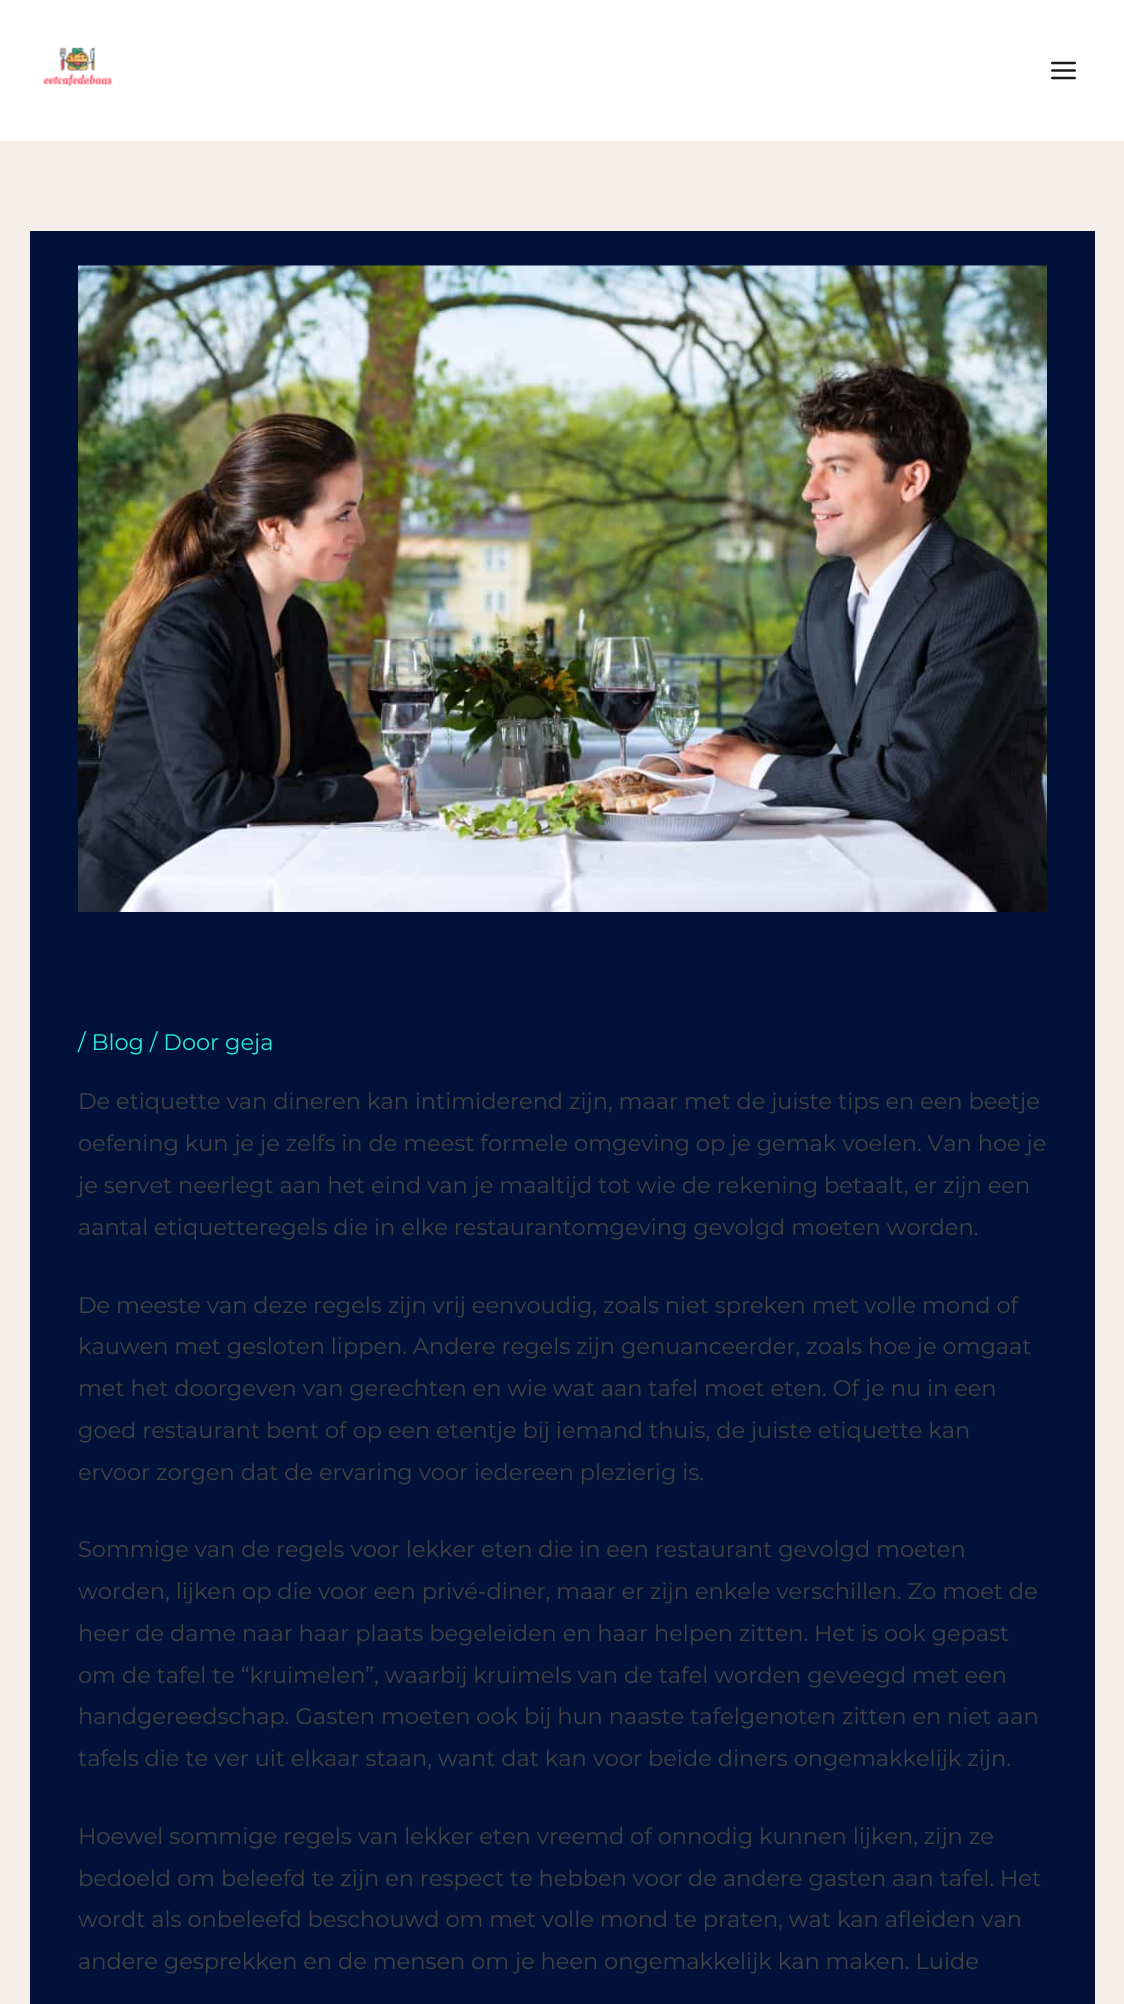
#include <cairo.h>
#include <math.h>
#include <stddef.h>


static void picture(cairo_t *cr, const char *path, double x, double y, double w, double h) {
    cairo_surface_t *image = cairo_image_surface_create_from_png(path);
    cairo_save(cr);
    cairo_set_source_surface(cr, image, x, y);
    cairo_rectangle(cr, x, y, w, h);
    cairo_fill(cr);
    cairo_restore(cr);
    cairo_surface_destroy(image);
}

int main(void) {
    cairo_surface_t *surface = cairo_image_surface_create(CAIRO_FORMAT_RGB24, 1124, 2004);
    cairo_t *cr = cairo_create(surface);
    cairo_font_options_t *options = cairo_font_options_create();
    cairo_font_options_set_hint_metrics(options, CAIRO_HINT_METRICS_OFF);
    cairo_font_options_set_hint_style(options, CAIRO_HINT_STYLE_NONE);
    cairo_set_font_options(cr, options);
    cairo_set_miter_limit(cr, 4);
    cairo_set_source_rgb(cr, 0.957, 0.937, 0.91);
    cairo_paint(cr);
    cairo_set_source_rgb(cr, 1, 1, 1);
    cairo_rectangle(cr, 0, 0, 1124, 141);
    cairo_fill(cr);
    picture(cr, "img1.png", 43, 46, 70, 41);
    picture(cr, "img2.png", 1051, 61, 25, 19);
    cairo_set_source_rgb(cr, 0, 0.071, 0.227);
    cairo_rectangle(cr, 30, 231, 1065, 1773);
    cairo_fill(cr);
    picture(cr, "img3.png", 78, 265, 969, 647);
    cairo_select_font_face(cr, "Montserrat", CAIRO_FONT_SLANT_NORMAL, CAIRO_FONT_WEIGHT_NORMAL);
    cairo_set_font_size(cr, 22.5);
    cairo_set_source_rgb(cr, 0.145, 0.918, 0.827);
    cairo_move_to(cr, 78, 1050);
    cairo_show_text(cr, "/ Blog / Door geja");
    cairo_set_source_rgb(cr, 0.259, 0.259, 0.259);
    cairo_move_to(cr, 78, 1109);
    cairo_show_text(cr, "De etiquette van dineren kan intimiderend zijn, maar met de juiste tips en een beetje");
    cairo_move_to(cr, 78, 1151);
    cairo_show_text(cr, "oefening kun je je zelfs in de meest formele omgeving op je gemak voelen. Van hoe je");
    cairo_move_to(cr, 78, 1193);
    cairo_show_text(cr, "je servet neerlegt aan het eind van je maaltijd tot wie de rekening betaalt, er zijn een");
    cairo_move_to(cr, 78, 1235);
    cairo_show_text(cr, "aantal etiquetteregels die in elke restaurantomgeving gevolgd moeten worden.");
    cairo_move_to(cr, 78, 1313);
    cairo_show_text(cr, "De meeste van deze regels zijn vrij eenvoudig, zoals niet spreken met volle mond of");
    cairo_move_to(cr, 78, 1354);
    cairo_show_text(cr, "kauwen met gesloten lippen. Andere regels zijn genuanceerder, zoals hoe je omgaat");
    cairo_move_to(cr, 78, 1396);
    cairo_show_text(cr, "met het doorgeven van gerechten en wie wat aan tafel moet eten. Of je nu in een");
    cairo_move_to(cr, 78, 1438);
    cairo_show_text(cr, "goed restaurant bent of op een etentje bij iemand thuis, de juiste etiquette kan");
    cairo_move_to(cr, 78, 1480);
    cairo_show_text(cr, "ervoor zorgen dat de ervaring voor iedereen plezierig is.");
    cairo_move_to(cr, 78, 1557);
    cairo_show_text(cr, "Sommige van de regels voor lekker eten die in een restaurant gevolgd moeten");
    cairo_move_to(cr, 78, 1599);
    cairo_show_text(cr, "worden, lijken op die voor een privé-diner, maar er zijn enkele verschillen. Zo moet de");
    cairo_move_to(cr, 78, 1641);
    cairo_show_text(cr, "heer de dame naar haar plaats begeleiden en haar helpen zitten. Het is ook gepast");
    cairo_move_to(cr, 78, 1683);
    cairo_show_text(cr, "om de tafel te “kruimelen”, waarbij kruimels van de tafel worden geveegd met een");
    cairo_move_to(cr, 78, 1724);
    cairo_show_text(cr, "handgereedschap. Gasten moeten ook bij hun naaste tafelgenoten zitten en niet aan");
    cairo_move_to(cr, 78, 1766);
    cairo_show_text(cr, "tafels die te ver uit elkaar staan, want dat kan voor beide diners ongemakkelijk zijn.");
    cairo_move_to(cr, 78, 1844);
    cairo_show_text(cr, "Hoewel sommige regels van lekker eten vreemd of onnodig kunnen lijken, zijn ze");
    cairo_move_to(cr, 78, 1886);
    cairo_show_text(cr, "bedoeld om beleefd te zijn en respect te hebben voor de andere gasten aan tafel. Het");
    cairo_move_to(cr, 78, 1927);
    cairo_show_text(cr, "wordt als onbeleefd beschouwd om met volle mond te praten, wat kan afleiden van");
    cairo_move_to(cr, 78, 1969);
    cairo_show_text(cr, "andere gesprekken en de mensen om je heen ongemakkelijk kan maken. Luide");
    cairo_surface_write_to_png(surface, "page.png");
    cairo_font_options_destroy(options);
    cairo_destroy(cr);
    cairo_surface_destroy(surface);
    return 0;
}
